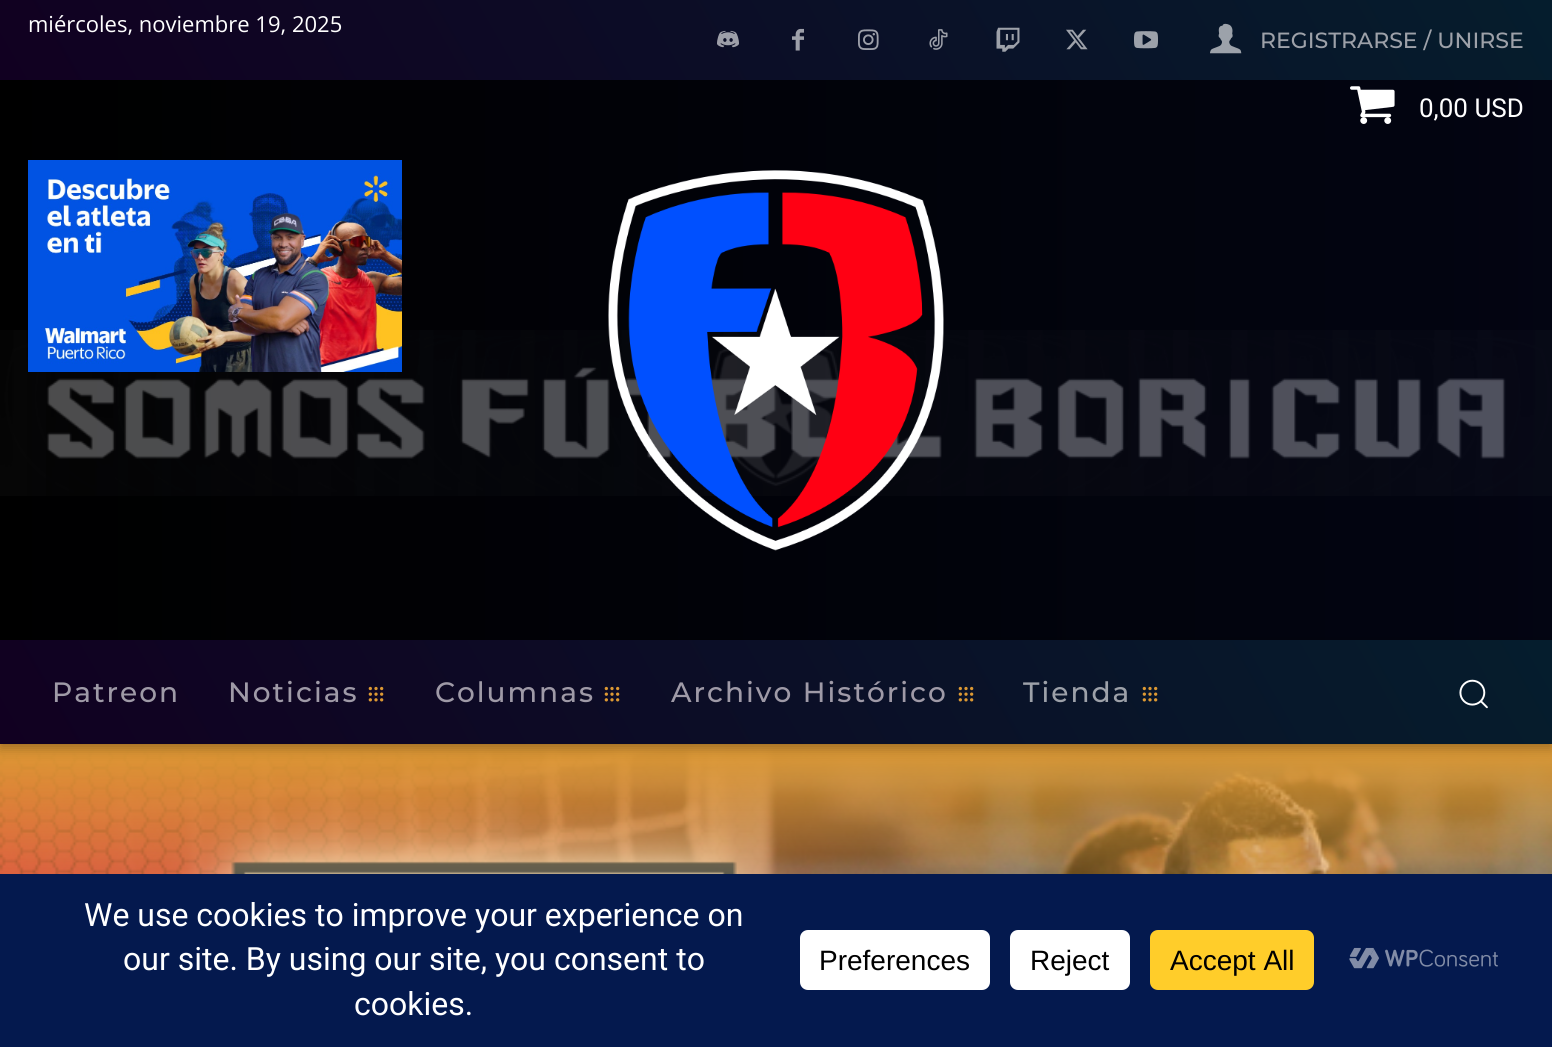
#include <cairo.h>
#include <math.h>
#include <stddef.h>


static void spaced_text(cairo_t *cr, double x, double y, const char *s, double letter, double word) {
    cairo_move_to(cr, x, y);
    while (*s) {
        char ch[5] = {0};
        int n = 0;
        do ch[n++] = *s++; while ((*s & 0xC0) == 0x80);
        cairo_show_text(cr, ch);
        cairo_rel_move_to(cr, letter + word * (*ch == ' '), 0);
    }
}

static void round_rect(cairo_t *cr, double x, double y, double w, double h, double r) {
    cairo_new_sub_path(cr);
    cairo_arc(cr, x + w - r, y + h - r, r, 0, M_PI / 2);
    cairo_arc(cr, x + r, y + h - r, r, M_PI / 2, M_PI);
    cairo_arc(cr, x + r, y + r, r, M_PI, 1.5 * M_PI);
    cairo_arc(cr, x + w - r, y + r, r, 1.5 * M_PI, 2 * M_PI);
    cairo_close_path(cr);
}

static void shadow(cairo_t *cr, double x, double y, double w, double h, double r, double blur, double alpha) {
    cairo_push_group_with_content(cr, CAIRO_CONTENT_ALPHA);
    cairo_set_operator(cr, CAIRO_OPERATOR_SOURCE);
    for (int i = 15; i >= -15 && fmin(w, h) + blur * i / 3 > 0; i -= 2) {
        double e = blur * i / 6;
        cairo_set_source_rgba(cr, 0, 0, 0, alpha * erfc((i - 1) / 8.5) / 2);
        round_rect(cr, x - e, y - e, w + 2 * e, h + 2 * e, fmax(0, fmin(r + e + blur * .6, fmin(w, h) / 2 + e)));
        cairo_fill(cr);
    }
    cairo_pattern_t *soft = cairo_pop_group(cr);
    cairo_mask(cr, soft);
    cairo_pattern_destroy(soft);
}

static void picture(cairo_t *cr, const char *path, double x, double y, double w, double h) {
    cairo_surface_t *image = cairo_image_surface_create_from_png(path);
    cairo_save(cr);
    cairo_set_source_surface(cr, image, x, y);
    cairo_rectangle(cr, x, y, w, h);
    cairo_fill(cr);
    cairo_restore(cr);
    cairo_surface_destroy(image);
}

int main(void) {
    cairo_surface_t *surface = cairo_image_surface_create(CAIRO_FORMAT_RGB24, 1552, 1047);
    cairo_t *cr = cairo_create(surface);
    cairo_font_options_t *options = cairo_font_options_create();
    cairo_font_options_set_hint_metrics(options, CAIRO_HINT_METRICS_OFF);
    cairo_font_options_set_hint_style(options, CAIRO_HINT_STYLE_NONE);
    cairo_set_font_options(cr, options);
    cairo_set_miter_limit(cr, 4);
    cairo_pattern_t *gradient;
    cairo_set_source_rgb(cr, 1, 1, 1);
    cairo_paint(cr);
    gradient = cairo_pattern_create_linear(177, 386, 1375, -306);
    cairo_pattern_add_color_stop_rgba(gradient, 0, 0.067, 0, 0.129, 1);
    cairo_pattern_add_color_stop_rgba(gradient, 1, 0.02, 0.114, 0.176, 1);
    cairo_set_source(cr, gradient);
    cairo_pattern_destroy(gradient);
    cairo_rectangle(cr, 0, 0, 1552, 80);
    cairo_fill(cr);
    cairo_select_font_face(cr, "Open Sans", CAIRO_FONT_SLANT_NORMAL, CAIRO_FONT_WEIGHT_NORMAL);
    cairo_set_font_size(cr, 22);
    cairo_set_source_rgb(cr, 1, 1, 1);
    cairo_move_to(cr, 28, 32);
    cairo_show_text(cr, "miércoles, noviembre 19, 2025");
    picture(cr, "img1.png", 717, 30, 22, 18);
    picture(cr, "img2.png", 792, 28, 12, 23);
    picture(cr, "img3.png", 858, 29, 21, 21);
    picture(cr, "img4.png", 929, 29, 19, 21);
    picture(cr, "img5.png", 996, 27, 24, 25);
    picture(cr, "img6.png", 1066, 29, 22, 21);
    picture(cr, "img7.png", 1134, 31, 24, 18);
    picture(cr, "img8.png", 1210, 23, 32, 31);
    cairo_select_font_face(cr, "Montserrat Medium", CAIRO_FONT_SLANT_NORMAL, CAIRO_FONT_WEIGHT_NORMAL);
    cairo_set_source_rgb(cr, 0.616, 0.631, 0.663);
    cairo_move_to(cr, 1260, 48);
    cairo_show_text(cr, "REGISTRARSE / UNIRSE");
    cairo_set_source_rgb(cr, 0, 0, 0);
    cairo_rectangle(cr, 0, 80, 1552, 560);
    cairo_fill(cr);
    picture(cr, "img9.png", 0, 330, 1552, 166);
    gradient = cairo_pattern_create_linear(0, 412, 1552, 412);
    cairo_pattern_add_color_stop_rgba(gradient, 0, 0, 0, 0, 0.6);
    cairo_pattern_add_color_stop_rgba(gradient, 1, 0.024, 0.043, 0.157, 0.6);
    cairo_set_source(cr, gradient);
    cairo_pattern_destroy(gradient);
    cairo_rectangle(cr, 0, 80, 1552, 560);
    cairo_fill(cr);
    cairo_set_source_rgba(cr, 0, 0, 0, 0.25);
    cairo_rectangle(cr, 46, 80, 1506, 560);
    cairo_fill(cr);
    picture(cr, "img10.png", 1350, 86, 45, 38);
    cairo_select_font_face(cr, "Roboto", CAIRO_FONT_SLANT_NORMAL, CAIRO_FONT_WEIGHT_NORMAL);
    cairo_set_font_size(cr, 26);
    cairo_set_source_rgb(cr, 1, 1, 1);
    cairo_move_to(cr, 1419, 117);
    cairo_show_text(cr, "0,00 USD");
    picture(cr, "img11.png", 28, 160, 374, 212);
    picture(cr, "img12.png", 608, 170, 336, 381);
    gradient = cairo_pattern_create_linear(171, 1041, 1381, 343);
    cairo_pattern_add_color_stop_rgba(gradient, 0, 0.067, 0, 0.129, 1);
    cairo_pattern_add_color_stop_rgba(gradient, 1, 0.02, 0.114, 0.176, 1);
    cairo_set_source(cr, gradient);
    cairo_pattern_destroy(gradient);
    cairo_rectangle(cr, 0, 640, 1552, 104);
    cairo_fill(cr);
    picture(cr, "img13.png", 368, 686, 16, 16);
    picture(cr, "img14.png", 604, 686, 16, 16);
    picture(cr, "img15.png", 958, 686, 16, 16);
    picture(cr, "img16.png", 1142, 686, 16, 16);
    picture(cr, "img18.png", 0, 744, 1552, 130);
    cairo_save(cr);
    cairo_set_fill_rule(cr, CAIRO_FILL_RULE_EVEN_ODD);
    cairo_new_path(cr);
    cairo_move_to(cr, 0, 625);
    cairo_line_to(cr, 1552, 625);
    cairo_line_to(cr, 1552, 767);
    cairo_line_to(cr, 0, 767);
    cairo_close_path(cr);
    cairo_move_to(cr, 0, 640);
    cairo_line_to(cr, 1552, 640);
    cairo_line_to(cr, 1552, 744);
    cairo_line_to(cr, 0, 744);
    cairo_close_path(cr);
    cairo_clip(cr);
    cairo_set_source_rgb(cr, 0, 0, 0);
    shadow(cr, 0, 644, 1552, 104, 0, 6, 0.3);
    cairo_restore(cr);
    cairo_select_font_face(cr, "Montserrat Medium", CAIRO_FONT_SLANT_NORMAL, CAIRO_FONT_WEIGHT_NORMAL);
    cairo_set_font_size(cr, 28);
    cairo_set_source_rgb(cr, 0.624, 0.604, 0.655);
    spaced_text(cr, 52, 702, "Patreon", 2, 0);
    spaced_text(cr, 228, 702, "Noticias", 2, 0);
    spaced_text(cr, 435, 702, "Columnas", 2, 0);
    spaced_text(cr, 671, 702, "Archivo Histórico", 2, 0);
    cairo_set_source_rgb(cr, 0.616, 0.631, 0.663);
    spaced_text(cr, 1023, 702, "Tienda", 2, 0);
    picture(cr, "img17.png", 1459, 679, 29, 30);
    cairo_set_source_rgb(cr, 0.016, 0.098, 0.306);
    cairo_rectangle(cr, 0, 874, 1552, 173);
    cairo_fill(cr);
    cairo_select_font_face(cr, "Roboto", CAIRO_FONT_SLANT_NORMAL, CAIRO_FONT_WEIGHT_NORMAL);
    cairo_set_font_size(cr, 32);
    cairo_set_source_rgb(cr, 1, 1, 1);
    cairo_move_to(cr, 84, 926);
    cairo_show_text(cr, "We use cookies to improve your experience on");
    cairo_move_to(cr, 123, 970);
    cairo_show_text(cr, "our site. By using our site, you consent to");
    cairo_move_to(cr, 354, 1015);
    cairo_show_text(cr, "cookies.");
    round_rect(cr, 800, 930, 190, 60, 8);
    cairo_fill(cr);
    cairo_select_font_face(cr, "Liberation Sans", CAIRO_FONT_SLANT_NORMAL, CAIRO_FONT_WEIGHT_NORMAL);
    cairo_set_font_size(cr, 28);
    cairo_set_source_rgb(cr, 0, 0, 0);
    cairo_move_to(cr, 819, 970);
    cairo_show_text(cr, "Preferences");
    cairo_set_source_rgb(cr, 1, 1, 1);
    round_rect(cr, 1010, 930, 120, 60, 8);
    cairo_fill(cr);
    cairo_set_source_rgb(cr, 0, 0, 0);
    cairo_move_to(cr, 1030, 970);
    cairo_show_text(cr, "Reject");
    cairo_set_source_rgb(cr, 1, 0.804, 0.165);
    round_rect(cr, 1150, 930, 164, 60, 8);
    cairo_fill(cr);
    cairo_set_source_rgb(cr, 0, 0, 0);
    cairo_move_to(cr, 1170, 970);
    cairo_show_text(cr, "Accept All");
    picture(cr, "img19.png", 1349, 947, 149, 22);
    cairo_surface_write_to_png(surface, "page.png");
    cairo_font_options_destroy(options);
    cairo_destroy(cr);
    cairo_surface_destroy(surface);
    return 0;
}
